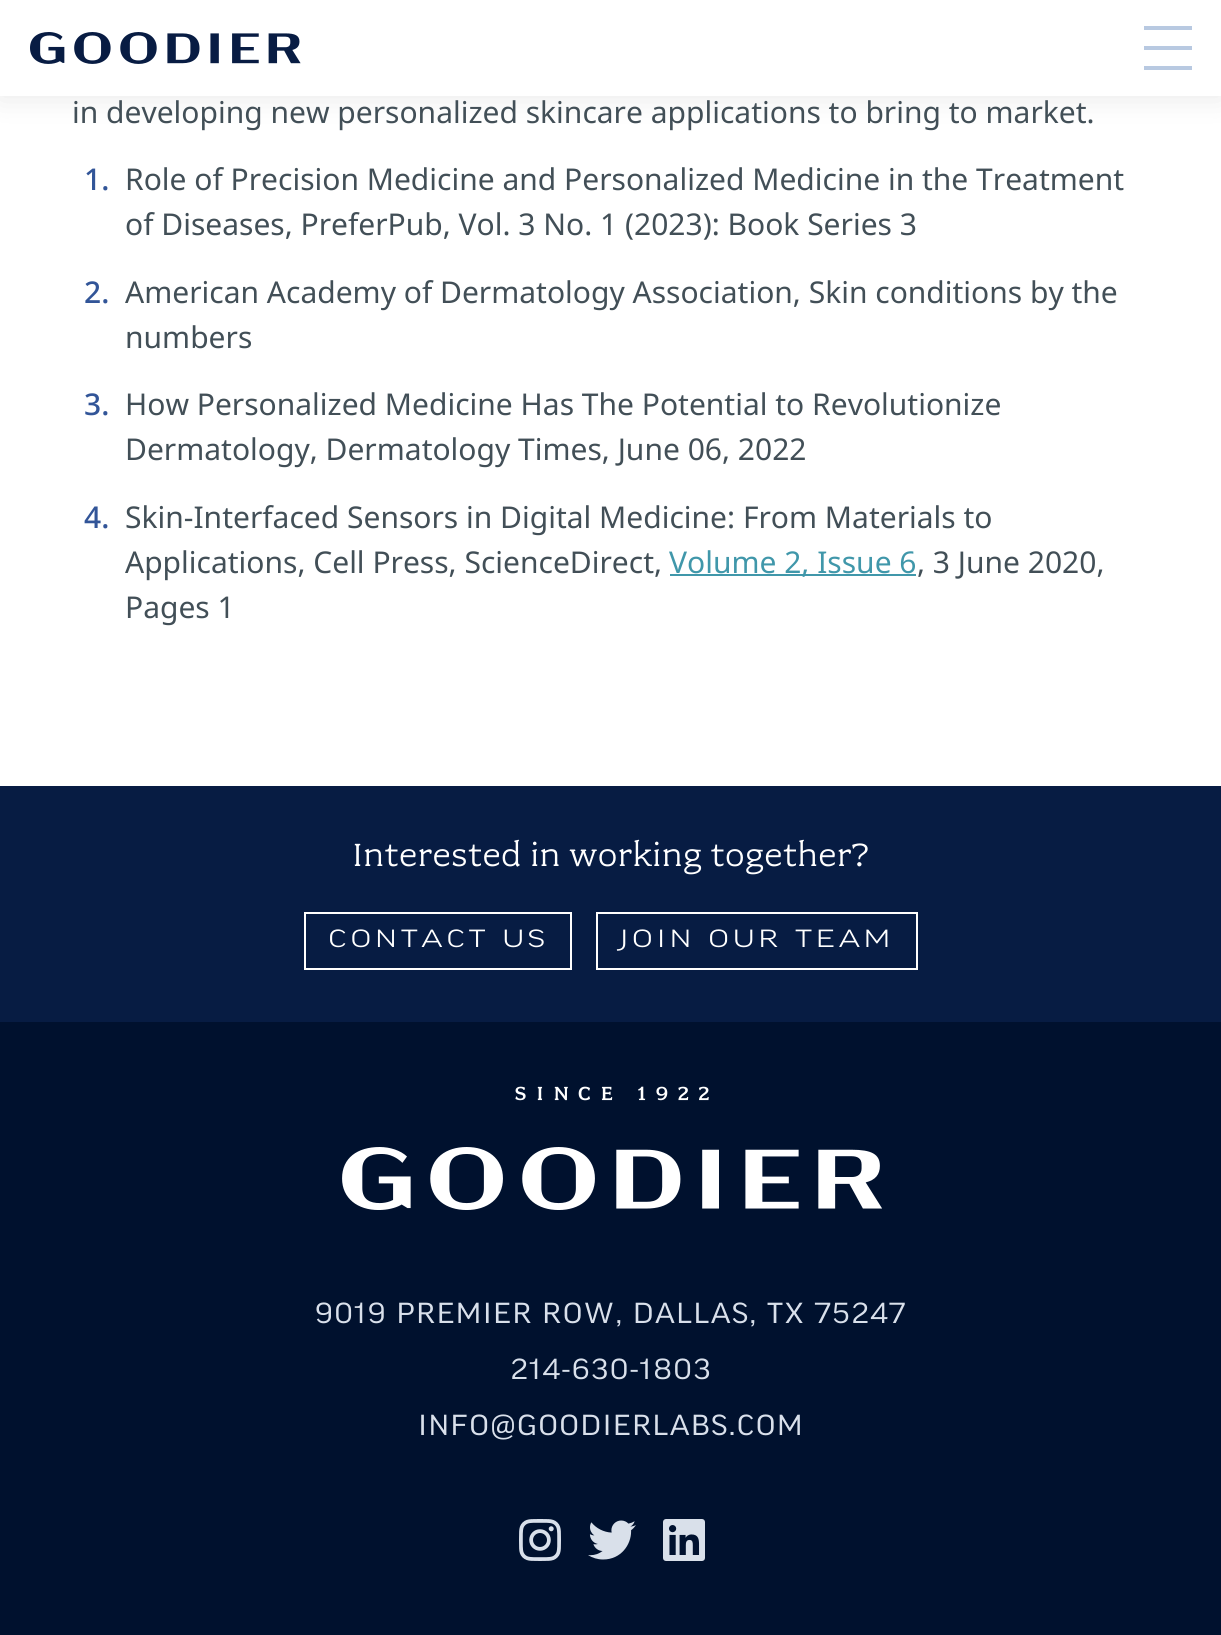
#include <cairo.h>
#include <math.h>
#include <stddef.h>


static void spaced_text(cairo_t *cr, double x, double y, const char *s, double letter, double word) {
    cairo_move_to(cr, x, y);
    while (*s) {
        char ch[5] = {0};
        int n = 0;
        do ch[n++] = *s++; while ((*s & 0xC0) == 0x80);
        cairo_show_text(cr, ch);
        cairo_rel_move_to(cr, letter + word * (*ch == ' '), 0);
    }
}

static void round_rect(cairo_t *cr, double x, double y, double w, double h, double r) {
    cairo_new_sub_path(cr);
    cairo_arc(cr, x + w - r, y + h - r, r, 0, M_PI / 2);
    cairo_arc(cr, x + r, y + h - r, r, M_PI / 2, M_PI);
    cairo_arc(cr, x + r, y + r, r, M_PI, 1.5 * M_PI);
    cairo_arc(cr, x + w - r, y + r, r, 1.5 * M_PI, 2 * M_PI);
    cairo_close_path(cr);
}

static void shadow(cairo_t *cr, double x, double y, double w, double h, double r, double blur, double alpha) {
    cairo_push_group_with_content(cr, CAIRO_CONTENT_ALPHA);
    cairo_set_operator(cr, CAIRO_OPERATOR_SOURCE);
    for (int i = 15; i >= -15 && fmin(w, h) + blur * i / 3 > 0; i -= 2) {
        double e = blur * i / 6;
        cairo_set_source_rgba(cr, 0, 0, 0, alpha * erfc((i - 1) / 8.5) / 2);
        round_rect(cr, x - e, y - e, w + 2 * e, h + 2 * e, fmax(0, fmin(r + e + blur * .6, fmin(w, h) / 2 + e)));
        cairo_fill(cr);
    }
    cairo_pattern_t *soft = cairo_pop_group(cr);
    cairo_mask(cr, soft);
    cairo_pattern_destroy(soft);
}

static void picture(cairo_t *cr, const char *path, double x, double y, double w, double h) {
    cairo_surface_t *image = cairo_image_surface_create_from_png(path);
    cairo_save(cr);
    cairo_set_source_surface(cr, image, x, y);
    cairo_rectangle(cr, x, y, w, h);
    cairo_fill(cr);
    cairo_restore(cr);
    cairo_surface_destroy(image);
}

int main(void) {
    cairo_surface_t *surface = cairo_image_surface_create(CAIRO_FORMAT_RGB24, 1221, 1635);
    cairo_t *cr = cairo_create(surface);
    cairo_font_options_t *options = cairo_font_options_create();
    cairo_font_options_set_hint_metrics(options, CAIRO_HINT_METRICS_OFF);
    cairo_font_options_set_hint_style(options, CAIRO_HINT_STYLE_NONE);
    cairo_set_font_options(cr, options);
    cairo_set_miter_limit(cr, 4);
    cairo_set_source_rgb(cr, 1, 1, 1);
    cairo_paint(cr);
    cairo_set_source_rgb(cr, 0, 0, 0);
    shadow(cr, 0, 0, 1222, 96, 0, 15, 0.1);
    cairo_set_source_rgb(cr, 1, 1, 1);
    cairo_rectangle(cr, 0, 0, 1221, 96);
    cairo_fill(cr);
    picture(cr, "img1.png", 30, 32, 271, 32);
    cairo_set_source_rgb(cr, 0.722, 0.788, 0.882);
    cairo_rectangle(cr, 1144, 26, 48, 4);
    cairo_fill(cr);
    cairo_rectangle(cr, 1144, 46, 48, 4);
    cairo_fill(cr);
    cairo_rectangle(cr, 1144, 66, 48, 4);
    cairo_fill(cr);
    cairo_select_font_face(cr, "Noto Sans", CAIRO_FONT_SLANT_NORMAL, CAIRO_FONT_WEIGHT_NORMAL);
    cairo_set_font_size(cr, 30);
    cairo_set_source_rgb(cr, 0.259, 0.31, 0.341);
    cairo_move_to(cr, 72, 123);
    cairo_show_text(cr, "in developing new personalized skincare applications to bring to market.");
    cairo_select_font_face(cr, "Noto Sans Medium", CAIRO_FONT_SLANT_NORMAL, CAIRO_FONT_WEIGHT_NORMAL);
    cairo_set_source_rgb(cr, 0.196, 0.333, 0.596);
    cairo_move_to(cr, 84, 190);
    cairo_show_text(cr, "1.");
    cairo_select_font_face(cr, "Noto Sans", CAIRO_FONT_SLANT_NORMAL, CAIRO_FONT_WEIGHT_NORMAL);
    cairo_set_source_rgb(cr, 0.259, 0.31, 0.341);
    cairo_move_to(cr, 125, 190);
    cairo_show_text(cr, "Role of Precision Medicine and Personalized Medicine in the Treatment");
    cairo_move_to(cr, 125, 235);
    cairo_show_text(cr, "of Diseases, PreferPub, Vol. 3 No. 1 (2023): Book Series 3");
    cairo_select_font_face(cr, "Noto Sans Medium", CAIRO_FONT_SLANT_NORMAL, CAIRO_FONT_WEIGHT_NORMAL);
    cairo_set_source_rgb(cr, 0.196, 0.333, 0.596);
    cairo_move_to(cr, 84, 303);
    cairo_show_text(cr, "2.");
    cairo_select_font_face(cr, "Noto Sans", CAIRO_FONT_SLANT_NORMAL, CAIRO_FONT_WEIGHT_NORMAL);
    cairo_set_source_rgb(cr, 0.259, 0.31, 0.341);
    cairo_move_to(cr, 125, 303);
    cairo_show_text(cr, "American Academy of Dermatology Association, Skin conditions by the");
    cairo_move_to(cr, 125, 348);
    cairo_show_text(cr, "numbers");
    cairo_select_font_face(cr, "Noto Sans Medium", CAIRO_FONT_SLANT_NORMAL, CAIRO_FONT_WEIGHT_NORMAL);
    cairo_set_source_rgb(cr, 0.196, 0.333, 0.596);
    cairo_move_to(cr, 84, 415);
    cairo_show_text(cr, "3.");
    cairo_select_font_face(cr, "Noto Sans", CAIRO_FONT_SLANT_NORMAL, CAIRO_FONT_WEIGHT_NORMAL);
    cairo_set_source_rgb(cr, 0.259, 0.31, 0.341);
    cairo_move_to(cr, 125, 415);
    cairo_show_text(cr, "How Personalized Medicine Has The Potential to Revolutionize");
    cairo_move_to(cr, 125, 460);
    cairo_show_text(cr, "Dermatology, Dermatology Times, June 06, 2022");
    cairo_select_font_face(cr, "Noto Sans Medium", CAIRO_FONT_SLANT_NORMAL, CAIRO_FONT_WEIGHT_NORMAL);
    cairo_set_source_rgb(cr, 0.196, 0.333, 0.596);
    cairo_move_to(cr, 84, 528);
    cairo_show_text(cr, "4.");
    cairo_select_font_face(cr, "Noto Sans", CAIRO_FONT_SLANT_NORMAL, CAIRO_FONT_WEIGHT_NORMAL);
    cairo_set_source_rgb(cr, 0.259, 0.31, 0.341);
    cairo_move_to(cr, 125, 528);
    cairo_show_text(cr, "Skin-Interfaced Sensors in Digital Medicine: From Materials to");
    cairo_move_to(cr, 125, 573);
    cairo_show_text(cr, "Applications, Cell Press, ScienceDirect,");
    cairo_set_source_rgb(cr, 0.251, 0.592, 0.667);
    cairo_rectangle(cr, 670, 574, 246, 2);
    cairo_fill(cr);
    cairo_move_to(cr, 669, 573);
    cairo_show_text(cr, "Volume 2, Issue 6");
    cairo_set_source_rgb(cr, 0.259, 0.31, 0.341);
    cairo_move_to(cr, 917, 573);
    cairo_show_text(cr, ", 3 June 2020,");
    cairo_move_to(cr, 125, 618);
    cairo_show_text(cr, "Pages 1");
    cairo_set_source_rgb(cr, 0.031, 0.11, 0.263);
    cairo_rectangle(cr, 0, 786, 1221, 236);
    cairo_fill(cr);
    cairo_select_font_face(cr, "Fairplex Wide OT", CAIRO_FONT_SLANT_NORMAL, CAIRO_FONT_WEIGHT_NORMAL);
    cairo_set_font_size(cr, 36);
    cairo_set_source_rgb(cr, 1, 1, 1);
    cairo_move_to(cr, 352, 866);
    cairo_show_text(cr, "Interested in working together?");
    cairo_rectangle(cr, 305, 913, 266, 56);
    cairo_stroke(cr);
    cairo_select_font_face(cr, "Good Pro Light", CAIRO_FONT_SLANT_NORMAL, CAIRO_FONT_WEIGHT_NORMAL);
    cairo_set_font_size(cr, 24);
    spaced_text(cr, 328, 947, "CONTACT US", 3.6, 0);
    cairo_rectangle(cr, 597, 913, 320, 56);
    cairo_stroke(cr);
    spaced_text(cr, 619, 947, "JOIN OUR TEAM", 3.6, 0);
    cairo_set_source_rgb(cr, 0, 0.067, 0.18);
    cairo_rectangle(cr, 0, 1022, 1221, 613);
    cairo_fill(cr);
    picture(cr, "img2.png", 342, 1086, 540, 124);
    cairo_select_font_face(cr, "Good Pro", CAIRO_FONT_SLANT_NORMAL, CAIRO_FONT_WEIGHT_NORMAL);
    cairo_set_font_size(cr, 28);
    cairo_set_source_rgb(cr, 0.851, 0.878, 0.918);
    spaced_text(cr, 315, 1323, "9019 PREMIER ROW, DALLAS, TX 75247", 1.4, 0);
    spaced_text(cr, 510, 1379, "214-630-1803", 1.4, 0);
    spaced_text(cr, 418, 1435, "INFO@GOODIERLABS.COM", 1.4, 0);
    picture(cr, "img3.png", 519, 1519, 42, 42);
    picture(cr, "img4.png", 588, 1520, 48, 40);
    picture(cr, "img5.png", 663, 1519, 42, 42);
    cairo_surface_write_to_png(surface, "page.png");
    cairo_font_options_destroy(options);
    cairo_destroy(cr);
    cairo_surface_destroy(surface);
    return 0;
}
